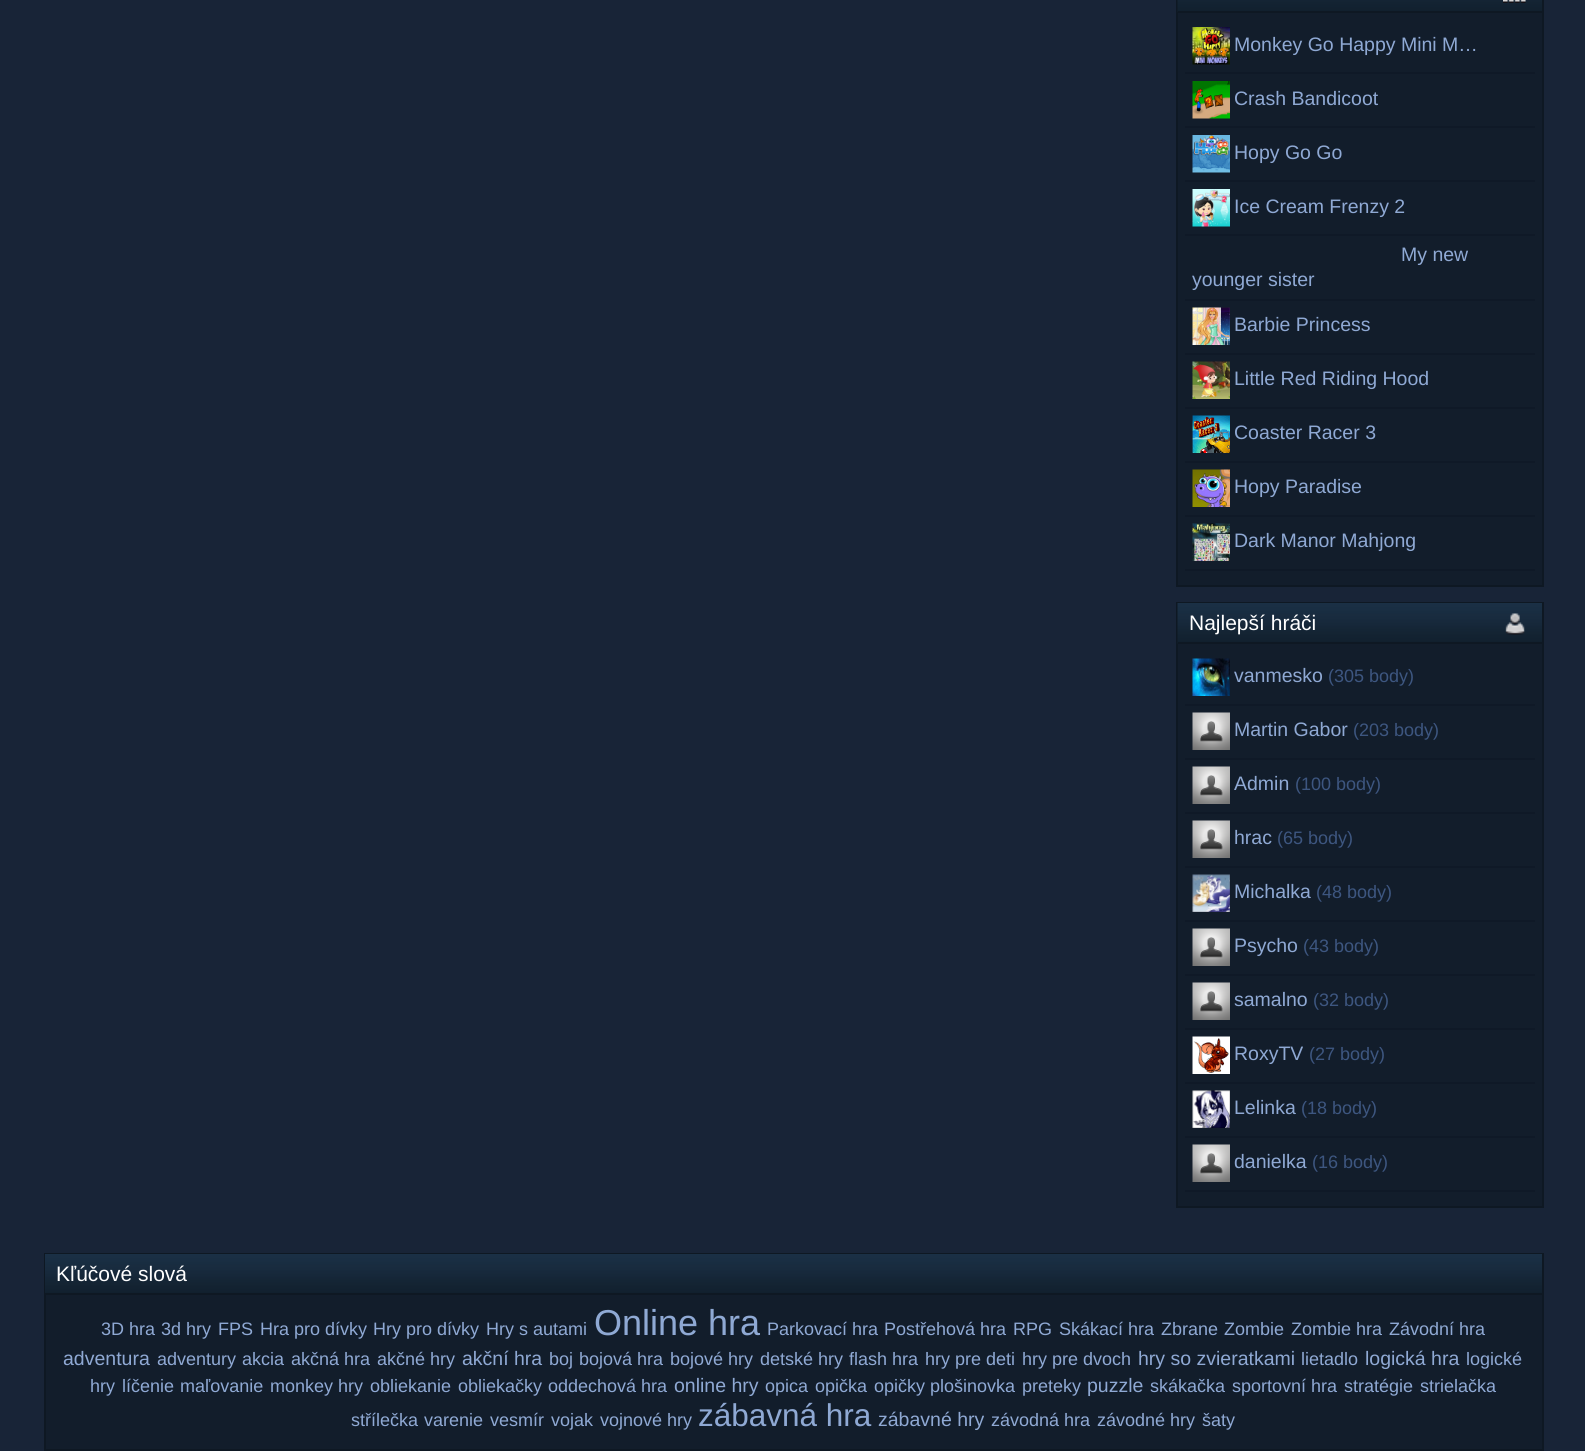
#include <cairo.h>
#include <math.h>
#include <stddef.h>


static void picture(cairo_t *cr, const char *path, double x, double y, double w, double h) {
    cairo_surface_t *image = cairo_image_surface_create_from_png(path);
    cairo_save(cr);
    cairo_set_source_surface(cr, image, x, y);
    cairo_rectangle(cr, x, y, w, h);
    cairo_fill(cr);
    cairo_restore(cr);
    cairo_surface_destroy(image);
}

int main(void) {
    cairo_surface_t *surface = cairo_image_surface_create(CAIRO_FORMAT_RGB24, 1585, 1451);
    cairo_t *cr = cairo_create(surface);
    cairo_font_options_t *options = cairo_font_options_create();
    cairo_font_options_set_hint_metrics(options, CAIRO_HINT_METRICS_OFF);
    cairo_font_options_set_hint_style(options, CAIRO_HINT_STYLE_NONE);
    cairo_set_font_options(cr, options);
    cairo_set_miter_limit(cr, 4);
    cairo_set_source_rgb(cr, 0.094, 0.141, 0.216);
    cairo_paint(cr);
    cairo_set_source_rgb(cr, 0.071, 0.114, 0.169);
    cairo_rectangle(cr, 1178, 13, 364, 572);
    cairo_fill(cr);
    cairo_rectangle(cr, 1177, -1, 366, 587);
    cairo_set_source_rgb(cr, 0.055, 0.094, 0.137);
    cairo_stroke(cr);
    picture(cr, "img1.png", 1177, 0, 365, 12);
    cairo_rectangle(cr, 1178, 11, 364, 2);
    cairo_fill(cr);
    picture(cr, "img2.png", 1503, 0, 23, 3);
    cairo_set_source_rgb(cr, 0.059, 0.098, 0.153);
    cairo_rectangle(cr, 1185, 72, 350, 2);
    cairo_fill(cr);
    picture(cr, "img3.png", 1192, 27, 38, 38);
    cairo_select_font_face(cr, "Liberation Sans", CAIRO_FONT_SLANT_NORMAL, CAIRO_FONT_WEIGHT_NORMAL);
    cairo_set_font_size(cr, 19.5);
    cairo_set_source_rgb(cr, 0.561, 0.663, 0.831);
    cairo_move_to(cr, 1234, 51);
    cairo_show_text(cr, "Monkey Go Happy Mini M…");
    cairo_set_source_rgb(cr, 0.059, 0.098, 0.153);
    cairo_rectangle(cr, 1185, 126, 350, 2);
    cairo_fill(cr);
    picture(cr, "img4.png", 1192, 81, 38, 38);
    cairo_set_source_rgb(cr, 0.561, 0.663, 0.831);
    cairo_move_to(cr, 1234, 105);
    cairo_show_text(cr, "Crash Bandicoot");
    cairo_set_source_rgb(cr, 0.059, 0.098, 0.153);
    cairo_rectangle(cr, 1185, 180, 350, 2);
    cairo_fill(cr);
    picture(cr, "img5.png", 1192, 135, 38, 38);
    cairo_set_source_rgb(cr, 0.561, 0.663, 0.831);
    cairo_move_to(cr, 1234, 159);
    cairo_show_text(cr, "Hopy Go Go");
    cairo_set_source_rgb(cr, 0.059, 0.098, 0.153);
    cairo_rectangle(cr, 1185, 234, 350, 2);
    cairo_fill(cr);
    picture(cr, "img6.png", 1192, 189, 38, 38);
    cairo_set_source_rgb(cr, 0.561, 0.663, 0.831);
    cairo_move_to(cr, 1234, 213);
    cairo_show_text(cr, "Ice Cream Frenzy 2");
    cairo_set_source_rgb(cr, 0.059, 0.098, 0.153);
    cairo_rectangle(cr, 1185, 299, 350, 2);
    cairo_fill(cr);
    cairo_set_source_rgb(cr, 0.561, 0.663, 0.831);
    cairo_move_to(cr, 1401, 261);
    cairo_show_text(cr, "My new");
    cairo_move_to(cr, 1192, 286);
    cairo_show_text(cr, "younger sister");
    cairo_set_source_rgb(cr, 0.059, 0.098, 0.153);
    cairo_rectangle(cr, 1185, 353, 350, 2);
    cairo_fill(cr);
    picture(cr, "img7.png", 1192, 307, 38, 38);
    cairo_set_source_rgb(cr, 0.561, 0.663, 0.831);
    cairo_move_to(cr, 1234, 331);
    cairo_show_text(cr, "Barbie Princess");
    cairo_set_source_rgb(cr, 0.059, 0.098, 0.153);
    cairo_rectangle(cr, 1185, 407, 350, 2);
    cairo_fill(cr);
    picture(cr, "img8.png", 1192, 361, 38, 38);
    cairo_set_source_rgb(cr, 0.561, 0.663, 0.831);
    cairo_move_to(cr, 1234, 385);
    cairo_show_text(cr, "Little Red Riding Hood");
    cairo_set_source_rgb(cr, 0.059, 0.098, 0.153);
    cairo_rectangle(cr, 1185, 461, 350, 2);
    cairo_fill(cr);
    picture(cr, "img9.png", 1192, 415, 38, 38);
    cairo_set_source_rgb(cr, 0.561, 0.663, 0.831);
    cairo_move_to(cr, 1234, 439);
    cairo_show_text(cr, "Coaster Racer 3");
    cairo_set_source_rgb(cr, 0.059, 0.098, 0.153);
    cairo_rectangle(cr, 1185, 515, 350, 2);
    cairo_fill(cr);
    picture(cr, "img10.png", 1192, 469, 38, 38);
    cairo_set_source_rgb(cr, 0.561, 0.663, 0.831);
    cairo_move_to(cr, 1234, 493);
    cairo_show_text(cr, "Hopy Paradise");
    cairo_set_source_rgb(cr, 0.059, 0.098, 0.153);
    cairo_rectangle(cr, 1185, 569, 350, 2);
    cairo_fill(cr);
    picture(cr, "img11.png", 1192, 523, 38, 38);
    cairo_set_source_rgb(cr, 0.561, 0.663, 0.831);
    cairo_move_to(cr, 1234, 547);
    cairo_show_text(cr, "Dark Manor Mahjong");
    cairo_set_source_rgb(cr, 0.071, 0.114, 0.169);
    cairo_rectangle(cr, 1178, 644, 364, 562);
    cairo_fill(cr);
    cairo_rectangle(cr, 1177, 603, 366, 604);
    cairo_set_source_rgb(cr, 0.055, 0.094, 0.137);
    cairo_stroke(cr);
    picture(cr, "img12.png", 1177, 603, 365, 41);
    cairo_rectangle(cr, 1178, 642, 364, 2);
    cairo_fill(cr);
    cairo_set_font_size(cr, 21);
    cairo_set_source_rgb(cr, 1, 1, 1);
    cairo_move_to(cr, 1189, 630);
    cairo_show_text(cr, "Najlepší hráči");
    picture(cr, "img13.png", 1505, 613, 20, 22);
    cairo_set_source_rgb(cr, 0.059, 0.098, 0.153);
    cairo_rectangle(cr, 1185, 704, 350, 2);
    cairo_fill(cr);
    picture(cr, "img14.png", 1192, 658, 38, 38);
    cairo_set_font_size(cr, 19.5);
    cairo_set_source_rgb(cr, 0.561, 0.663, 0.831);
    cairo_move_to(cr, 1234, 682);
    cairo_show_text(cr, "vanmesko");
    cairo_set_font_size(cr, 18);
    cairo_set_source_rgb(cr, 0.239, 0.337, 0.502);
    cairo_move_to(cr, 1328, 682);
    cairo_show_text(cr, "(305 body)");
    cairo_set_source_rgb(cr, 0.059, 0.098, 0.153);
    cairo_rectangle(cr, 1185, 758, 350, 2);
    cairo_fill(cr);
    picture(cr, "img15.png", 1192, 712, 38, 38);
    cairo_set_font_size(cr, 19.5);
    cairo_set_source_rgb(cr, 0.561, 0.663, 0.831);
    cairo_move_to(cr, 1234, 736);
    cairo_show_text(cr, "Martin Gabor");
    cairo_set_font_size(cr, 18);
    cairo_set_source_rgb(cr, 0.239, 0.337, 0.502);
    cairo_move_to(cr, 1353, 736);
    cairo_show_text(cr, "(203 body)");
    cairo_set_source_rgb(cr, 0.059, 0.098, 0.153);
    cairo_rectangle(cr, 1185, 812, 350, 2);
    cairo_fill(cr);
    picture(cr, "img15.png", 1192, 766, 38, 38);
    cairo_set_font_size(cr, 19.5);
    cairo_set_source_rgb(cr, 0.561, 0.663, 0.831);
    cairo_move_to(cr, 1234, 790);
    cairo_show_text(cr, "Admin");
    cairo_set_font_size(cr, 18);
    cairo_set_source_rgb(cr, 0.239, 0.337, 0.502);
    cairo_move_to(cr, 1295, 790);
    cairo_show_text(cr, "(100 body)");
    cairo_set_source_rgb(cr, 0.059, 0.098, 0.153);
    cairo_rectangle(cr, 1185, 866, 350, 2);
    cairo_fill(cr);
    picture(cr, "img15.png", 1192, 820, 38, 38);
    cairo_set_font_size(cr, 19.5);
    cairo_set_source_rgb(cr, 0.561, 0.663, 0.831);
    cairo_move_to(cr, 1234, 844);
    cairo_show_text(cr, "hrac");
    cairo_set_font_size(cr, 18);
    cairo_set_source_rgb(cr, 0.239, 0.337, 0.502);
    cairo_move_to(cr, 1277, 844);
    cairo_show_text(cr, "(65 body)");
    cairo_set_source_rgb(cr, 0.059, 0.098, 0.153);
    cairo_rectangle(cr, 1185, 920, 350, 2);
    cairo_fill(cr);
    picture(cr, "img16.png", 1192, 874, 38, 38);
    cairo_set_font_size(cr, 19.5);
    cairo_set_source_rgb(cr, 0.561, 0.663, 0.831);
    cairo_move_to(cr, 1234, 898);
    cairo_show_text(cr, "Michalka");
    cairo_set_font_size(cr, 18);
    cairo_set_source_rgb(cr, 0.239, 0.337, 0.502);
    cairo_move_to(cr, 1316, 898);
    cairo_show_text(cr, "(48 body)");
    cairo_set_source_rgb(cr, 0.059, 0.098, 0.153);
    cairo_rectangle(cr, 1185, 974, 350, 2);
    cairo_fill(cr);
    picture(cr, "img15.png", 1192, 928, 38, 38);
    cairo_set_font_size(cr, 19.5);
    cairo_set_source_rgb(cr, 0.561, 0.663, 0.831);
    cairo_move_to(cr, 1234, 952);
    cairo_show_text(cr, "Psycho");
    cairo_set_font_size(cr, 18);
    cairo_set_source_rgb(cr, 0.239, 0.337, 0.502);
    cairo_move_to(cr, 1303, 952);
    cairo_show_text(cr, "(43 body)");
    cairo_set_source_rgb(cr, 0.059, 0.098, 0.153);
    cairo_rectangle(cr, 1185, 1028, 350, 2);
    cairo_fill(cr);
    picture(cr, "img15.png", 1192, 982, 38, 38);
    cairo_set_font_size(cr, 19.5);
    cairo_set_source_rgb(cr, 0.561, 0.663, 0.831);
    cairo_move_to(cr, 1234, 1006);
    cairo_show_text(cr, "samalno");
    cairo_set_font_size(cr, 18);
    cairo_set_source_rgb(cr, 0.239, 0.337, 0.502);
    cairo_move_to(cr, 1313, 1006);
    cairo_show_text(cr, "(32 body)");
    cairo_set_source_rgb(cr, 0.059, 0.098, 0.153);
    cairo_rectangle(cr, 1185, 1082, 350, 2);
    cairo_fill(cr);
    picture(cr, "img17.png", 1192, 1036, 38, 38);
    cairo_set_font_size(cr, 19.5);
    cairo_set_source_rgb(cr, 0.561, 0.663, 0.831);
    cairo_move_to(cr, 1234, 1060);
    cairo_show_text(cr, "RoxyTV");
    cairo_set_font_size(cr, 18);
    cairo_set_source_rgb(cr, 0.239, 0.337, 0.502);
    cairo_move_to(cr, 1309, 1060);
    cairo_show_text(cr, "(27 body)");
    cairo_set_source_rgb(cr, 0.059, 0.098, 0.153);
    cairo_rectangle(cr, 1185, 1136, 350, 2);
    cairo_fill(cr);
    picture(cr, "img18.png", 1192, 1090, 38, 38);
    cairo_set_font_size(cr, 19.5);
    cairo_set_source_rgb(cr, 0.561, 0.663, 0.831);
    cairo_move_to(cr, 1234, 1114);
    cairo_show_text(cr, "Lelinka");
    cairo_set_font_size(cr, 18);
    cairo_set_source_rgb(cr, 0.239, 0.337, 0.502);
    cairo_move_to(cr, 1301, 1114);
    cairo_show_text(cr, "(18 body)");
    cairo_set_source_rgb(cr, 0.059, 0.098, 0.153);
    cairo_rectangle(cr, 1185, 1190, 350, 2);
    cairo_fill(cr);
    picture(cr, "img15.png", 1192, 1144, 38, 38);
    cairo_set_font_size(cr, 19.5);
    cairo_set_source_rgb(cr, 0.561, 0.663, 0.831);
    cairo_move_to(cr, 1234, 1168);
    cairo_show_text(cr, "danielka");
    cairo_set_font_size(cr, 18);
    cairo_set_source_rgb(cr, 0.239, 0.337, 0.502);
    cairo_move_to(cr, 1312, 1168);
    cairo_show_text(cr, "(16 body)");
    cairo_set_source_rgb(cr, 0.071, 0.114, 0.169);
    cairo_rectangle(cr, 46, 1295, 1496, 154);
    cairo_fill(cr);
    cairo_rectangle(cr, 45, 1254, 1498, 196);
    cairo_set_source_rgb(cr, 0.055, 0.094, 0.137);
    cairo_stroke(cr);
    picture(cr, "img19.png", 45, 1254, 1497, 39);
    cairo_rectangle(cr, 45, 1293, 1497, 2);
    cairo_fill(cr);
    cairo_set_font_size(cr, 21);
    cairo_set_source_rgb(cr, 1, 1, 1);
    cairo_move_to(cr, 56, 1281);
    cairo_show_text(cr, "Kľúčové slová");
    cairo_set_font_size(cr, 18);
    cairo_set_source_rgb(cr, 0.561, 0.663, 0.831);
    cairo_move_to(cr, 101, 1335);
    cairo_show_text(cr, "3D hra");
    cairo_move_to(cr, 161, 1335);
    cairo_show_text(cr, "3d hry");
    cairo_move_to(cr, 218, 1335);
    cairo_show_text(cr, "FPS");
    cairo_move_to(cr, 260, 1335);
    cairo_show_text(cr, "Hra pro dívky");
    cairo_move_to(cr, 373, 1335);
    cairo_show_text(cr, "Hry pro dívky");
    cairo_move_to(cr, 486, 1335);
    cairo_show_text(cr, "Hry s autami");
    cairo_set_font_size(cr, 36);
    cairo_move_to(cr, 594, 1335);
    cairo_show_text(cr, "Online hra");
    cairo_set_font_size(cr, 18);
    cairo_move_to(cr, 767, 1335);
    cairo_show_text(cr, "Parkovací hra");
    cairo_move_to(cr, 884, 1335);
    cairo_show_text(cr, "Postřehová hra");
    cairo_move_to(cr, 1013, 1335);
    cairo_show_text(cr, "RPG");
    cairo_move_to(cr, 1059, 1335);
    cairo_show_text(cr, "Skákací hra");
    cairo_move_to(cr, 1161, 1335);
    cairo_show_text(cr, "Zbrane");
    cairo_move_to(cr, 1224, 1335);
    cairo_show_text(cr, "Zombie");
    cairo_move_to(cr, 1291, 1335);
    cairo_show_text(cr, "Zombie hra");
    cairo_move_to(cr, 1389, 1335);
    cairo_show_text(cr, "Závodní hra");
    cairo_set_font_size(cr, 19.5);
    cairo_move_to(cr, 63, 1365);
    cairo_show_text(cr, "adventura");
    cairo_set_font_size(cr, 18);
    cairo_move_to(cr, 157, 1365);
    cairo_show_text(cr, "adventury");
    cairo_move_to(cr, 242, 1365);
    cairo_show_text(cr, "akcia");
    cairo_move_to(cr, 291, 1365);
    cairo_show_text(cr, "akčná hra");
    cairo_move_to(cr, 377, 1365);
    cairo_show_text(cr, "akčné hry");
    cairo_set_font_size(cr, 19.5);
    cairo_move_to(cr, 462, 1365);
    cairo_show_text(cr, "akční hra");
    cairo_set_font_size(cr, 18);
    cairo_move_to(cr, 549, 1365);
    cairo_show_text(cr, "boj");
    cairo_move_to(cr, 579, 1365);
    cairo_show_text(cr, "bojová hra");
    cairo_move_to(cr, 670, 1365);
    cairo_show_text(cr, "bojové hry");
    cairo_move_to(cr, 760, 1365);
    cairo_show_text(cr, "detské hry");
    cairo_move_to(cr, 849, 1365);
    cairo_show_text(cr, "flash hra");
    cairo_move_to(cr, 925, 1365);
    cairo_show_text(cr, "hry pre deti");
    cairo_move_to(cr, 1022, 1365);
    cairo_show_text(cr, "hry pre dvoch");
    cairo_set_font_size(cr, 19.5);
    cairo_move_to(cr, 1138, 1365);
    cairo_show_text(cr, "hry so zvieratkami");
    cairo_set_font_size(cr, 18);
    cairo_move_to(cr, 1301, 1365);
    cairo_show_text(cr, "lietadlo");
    cairo_set_font_size(cr, 19.5);
    cairo_move_to(cr, 1365, 1365);
    cairo_show_text(cr, "logická hra");
    cairo_set_font_size(cr, 18);
    cairo_move_to(cr, 1466, 1365);
    cairo_show_text(cr, "logické");
    cairo_move_to(cr, 90, 1392);
    cairo_show_text(cr, "hry");
    cairo_move_to(cr, 122, 1392);
    cairo_show_text(cr, "líčenie");
    cairo_move_to(cr, 180, 1392);
    cairo_show_text(cr, "maľovanie");
    cairo_move_to(cr, 270, 1392);
    cairo_show_text(cr, "monkey hry");
    cairo_move_to(cr, 370, 1392);
    cairo_show_text(cr, "obliekanie");
    cairo_move_to(cr, 458, 1392);
    cairo_show_text(cr, "obliekačky");
    cairo_move_to(cr, 548, 1392);
    cairo_show_text(cr, "oddechová hra");
    cairo_set_font_size(cr, 19.5);
    cairo_move_to(cr, 674, 1392);
    cairo_show_text(cr, "online hry");
    cairo_set_font_size(cr, 18);
    cairo_move_to(cr, 765, 1392);
    cairo_show_text(cr, "opica");
    cairo_move_to(cr, 815, 1392);
    cairo_show_text(cr, "opička");
    cairo_move_to(cr, 874, 1392);
    cairo_show_text(cr, "opičky plošinovka");
    cairo_move_to(cr, 1022, 1392);
    cairo_show_text(cr, "preteky");
    cairo_set_font_size(cr, 19.5);
    cairo_move_to(cr, 1087, 1392);
    cairo_show_text(cr, "puzzle");
    cairo_set_font_size(cr, 18);
    cairo_move_to(cr, 1150, 1392);
    cairo_show_text(cr, "skákačka");
    cairo_move_to(cr, 1232, 1392);
    cairo_show_text(cr, "sportovní hra");
    cairo_move_to(cr, 1344, 1392);
    cairo_show_text(cr, "stratégie");
    cairo_move_to(cr, 1420, 1392);
    cairo_show_text(cr, "strielačka");
    cairo_move_to(cr, 351, 1426);
    cairo_show_text(cr, "střílečka");
    cairo_move_to(cr, 424, 1426);
    cairo_show_text(cr, "varenie");
    cairo_move_to(cr, 490, 1426);
    cairo_show_text(cr, "vesmír");
    cairo_move_to(cr, 551, 1426);
    cairo_show_text(cr, "vojak");
    cairo_move_to(cr, 600, 1426);
    cairo_show_text(cr, "vojnové hry");
    cairo_set_font_size(cr, 31.5);
    cairo_move_to(cr, 698, 1426);
    cairo_show_text(cr, "zábavná hra");
    cairo_set_font_size(cr, 19.5);
    cairo_move_to(cr, 878, 1426);
    cairo_show_text(cr, "zábavné hry");
    cairo_set_font_size(cr, 18);
    cairo_move_to(cr, 991, 1426);
    cairo_show_text(cr, "závodná hra");
    cairo_move_to(cr, 1097, 1426);
    cairo_show_text(cr, "závodné hry");
    cairo_move_to(cr, 1202, 1426);
    cairo_show_text(cr, "šaty");
    cairo_surface_write_to_png(surface, "page.png");
    cairo_font_options_destroy(options);
    cairo_destroy(cr);
    cairo_surface_destroy(surface);
    return 0;
}
